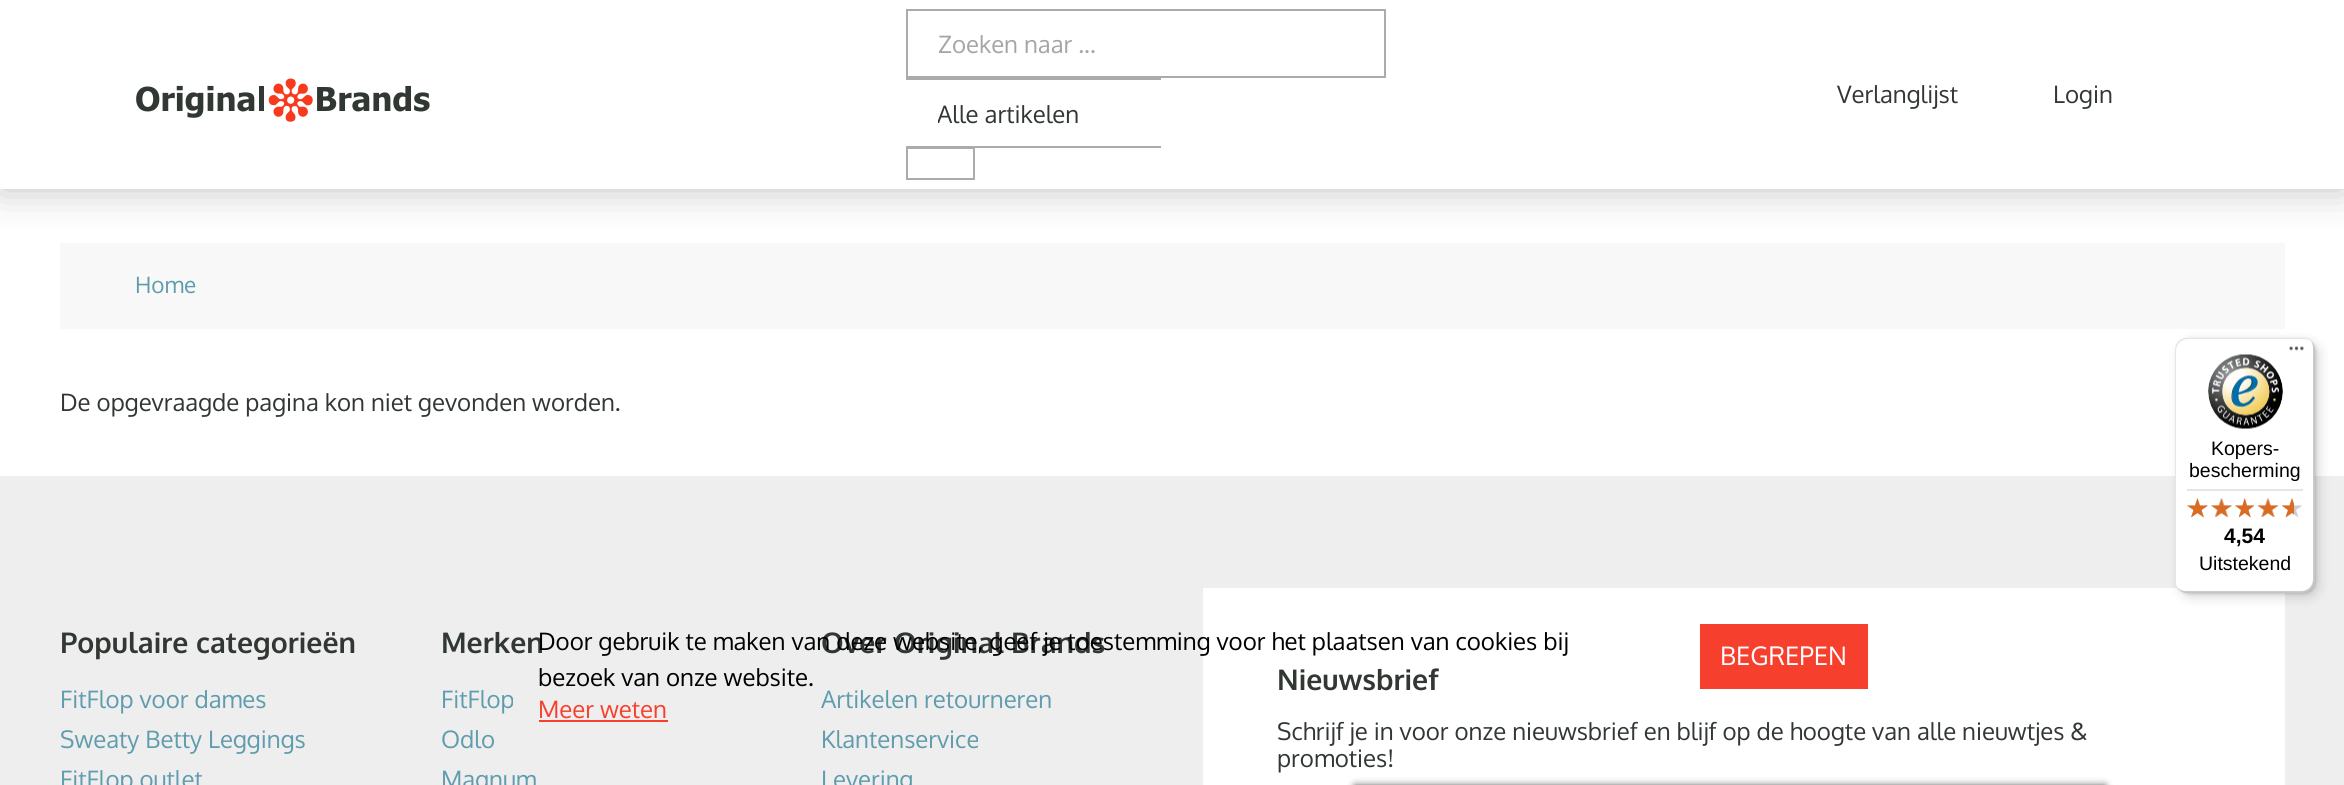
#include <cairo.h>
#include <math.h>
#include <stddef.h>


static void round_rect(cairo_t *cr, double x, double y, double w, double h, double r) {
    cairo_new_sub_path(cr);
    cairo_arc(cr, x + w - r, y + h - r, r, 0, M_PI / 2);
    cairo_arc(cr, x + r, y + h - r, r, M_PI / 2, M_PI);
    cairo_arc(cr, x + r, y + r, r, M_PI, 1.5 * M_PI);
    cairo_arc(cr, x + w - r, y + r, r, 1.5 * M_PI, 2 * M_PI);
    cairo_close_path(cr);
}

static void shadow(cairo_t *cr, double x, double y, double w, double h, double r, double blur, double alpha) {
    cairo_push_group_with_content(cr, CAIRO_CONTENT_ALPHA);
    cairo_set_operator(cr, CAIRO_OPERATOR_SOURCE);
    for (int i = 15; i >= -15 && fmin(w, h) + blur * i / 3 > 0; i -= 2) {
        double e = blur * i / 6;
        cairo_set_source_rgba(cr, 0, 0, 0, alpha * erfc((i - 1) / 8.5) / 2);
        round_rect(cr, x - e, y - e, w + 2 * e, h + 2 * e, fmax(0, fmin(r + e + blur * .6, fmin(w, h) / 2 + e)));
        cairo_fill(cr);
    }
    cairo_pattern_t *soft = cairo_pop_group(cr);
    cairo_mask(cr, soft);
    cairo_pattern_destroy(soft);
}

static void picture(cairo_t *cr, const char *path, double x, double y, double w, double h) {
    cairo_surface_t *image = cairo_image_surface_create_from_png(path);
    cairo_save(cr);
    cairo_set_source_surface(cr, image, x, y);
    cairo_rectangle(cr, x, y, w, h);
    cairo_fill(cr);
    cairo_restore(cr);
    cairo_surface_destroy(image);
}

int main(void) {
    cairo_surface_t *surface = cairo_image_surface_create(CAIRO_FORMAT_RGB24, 2344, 785);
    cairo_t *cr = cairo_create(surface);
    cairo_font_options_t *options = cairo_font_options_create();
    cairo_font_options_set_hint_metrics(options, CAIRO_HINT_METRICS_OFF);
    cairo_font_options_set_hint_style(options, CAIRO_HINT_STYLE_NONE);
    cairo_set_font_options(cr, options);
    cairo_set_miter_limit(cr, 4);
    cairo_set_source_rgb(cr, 1, 1, 1);
    cairo_paint(cr);
    cairo_set_source_rgb(cr, 0.969, 0.969, 0.969);
    cairo_rectangle(cr, 60, 243, 2225, 86);
    cairo_fill(cr);
    cairo_set_source_rgb(cr, 0, 0, 0);
    shadow(cr, 0, 0, 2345, 189, 0, 20, 0.25);
    cairo_set_source_rgb(cr, 1, 1, 1);
    cairo_rectangle(cr, 0, 0, 2344, 189);
    cairo_fill(cr);
    picture(cr, "img1.png", 136, 78, 294, 44);
    cairo_rectangle(cr, 907, 10, 478, 67);
    cairo_set_source_rgb(cr, 0.671, 0.671, 0.671);
    cairo_stroke(cr);
    cairo_select_font_face(cr, "Oxygen", CAIRO_FONT_SLANT_NORMAL, CAIRO_FONT_WEIGHT_NORMAL);
    cairo_set_font_size(cr, 24);
    cairo_set_source_rgb(cr, 0.647, 0.647, 0.647);
    cairo_move_to(cr, 938, 53);
    cairo_show_text(cr, "Zoeken naar ...");
    cairo_set_source_rgb(cr, 0.671, 0.671, 0.671);
    cairo_rectangle(cr, 906, 78, 255, 2);
    cairo_fill(cr);
    cairo_rectangle(cr, 907, 148, 67, 31);
    cairo_stroke(cr);
    cairo_rectangle(cr, 906, 146, 255, 2);
    cairo_fill(cr);
    cairo_save(cr);
    cairo_rectangle(cr, 938, 99, 178, 32);
    cairo_clip(cr);
    cairo_set_source_rgb(cr, 0.192, 0.216, 0.196);
    cairo_move_to(cr, 937, 123);
    cairo_show_text(cr, "Alle artikelen");
    cairo_restore(cr);
    cairo_set_source_rgb(cr, 0.192, 0.216, 0.196);
    cairo_move_to(cr, 1837, 103);
    cairo_show_text(cr, "Verlanglijst");
    cairo_move_to(cr, 2053, 103);
    cairo_show_text(cr, "Login");
    cairo_set_font_size(cr, 22.5);
    cairo_set_source_rgb(cr, 0.373, 0.612, 0.678);
    cairo_move_to(cr, 135, 293);
    cairo_show_text(cr, "Home");
    cairo_set_font_size(cr, 24);
    cairo_set_source_rgb(cr, 0.192, 0.216, 0.196);
    cairo_move_to(cr, 60, 411);
    cairo_show_text(cr, "De opgevraagde pagina kon niet gevonden worden.");
    cairo_set_source_rgb(cr, 0.933, 0.933, 0.933);
    cairo_rectangle(cr, 0, 476, 2344, 309);
    cairo_fill(cr);
    cairo_set_source_rgb(cr, 1, 1, 1);
    cairo_rectangle(cr, 1203, 588, 1082, 197);
    cairo_fill(cr);
    cairo_set_source_rgb(cr, 0, 0, 0);
    shadow(cr, 1355, 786, 750, 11, 0, 4, 0.75);
    cairo_select_font_face(cr, "Oxygen", CAIRO_FONT_SLANT_NORMAL, CAIRO_FONT_WEIGHT_BOLD);
    cairo_set_font_size(cr, 28.5);
    cairo_set_source_rgb(cr, 0.192, 0.216, 0.196);
    cairo_move_to(cr, 60, 653);
    cairo_show_text(cr, "Populaire categorieën");
    cairo_select_font_face(cr, "Oxygen", CAIRO_FONT_SLANT_NORMAL, CAIRO_FONT_WEIGHT_NORMAL);
    cairo_set_font_size(cr, 24);
    cairo_set_source_rgb(cr, 0.373, 0.612, 0.678);
    cairo_move_to(cr, 60, 708);
    cairo_show_text(cr, "FitFlop voor dames");
    cairo_move_to(cr, 60, 748);
    cairo_show_text(cr, "Sweaty Betty Leggings");
    cairo_move_to(cr, 60, 788);
    cairo_show_text(cr, "FitFlop outlet");
    cairo_select_font_face(cr, "Oxygen", CAIRO_FONT_SLANT_NORMAL, CAIRO_FONT_WEIGHT_BOLD);
    cairo_set_font_size(cr, 28.5);
    cairo_set_source_rgb(cr, 0.192, 0.216, 0.196);
    cairo_move_to(cr, 441, 653);
    cairo_show_text(cr, "Merken");
    cairo_select_font_face(cr, "Oxygen", CAIRO_FONT_SLANT_NORMAL, CAIRO_FONT_WEIGHT_NORMAL);
    cairo_set_font_size(cr, 24);
    cairo_set_source_rgb(cr, 0.373, 0.612, 0.678);
    cairo_move_to(cr, 441, 708);
    cairo_show_text(cr, "FitFlop");
    cairo_move_to(cr, 441, 748);
    cairo_show_text(cr, "Odlo");
    cairo_move_to(cr, 441, 788);
    cairo_show_text(cr, "Magnum");
    cairo_select_font_face(cr, "Oxygen", CAIRO_FONT_SLANT_NORMAL, CAIRO_FONT_WEIGHT_BOLD);
    cairo_set_font_size(cr, 28.5);
    cairo_set_source_rgb(cr, 0.192, 0.216, 0.196);
    cairo_move_to(cr, 821, 653);
    cairo_show_text(cr, "Over Original Brands");
    cairo_select_font_face(cr, "Oxygen", CAIRO_FONT_SLANT_NORMAL, CAIRO_FONT_WEIGHT_NORMAL);
    cairo_set_font_size(cr, 24);
    cairo_set_source_rgb(cr, 0.373, 0.612, 0.678);
    cairo_move_to(cr, 821, 708);
    cairo_show_text(cr, "Artikelen retourneren");
    cairo_move_to(cr, 821, 748);
    cairo_show_text(cr, "Klantenservice");
    cairo_move_to(cr, 821, 788);
    cairo_show_text(cr, "Levering");
    cairo_select_font_face(cr, "Oxygen", CAIRO_FONT_SLANT_NORMAL, CAIRO_FONT_WEIGHT_BOLD);
    cairo_set_font_size(cr, 28.5);
    cairo_set_source_rgb(cr, 0.192, 0.216, 0.196);
    cairo_move_to(cr, 1277, 690);
    cairo_show_text(cr, "Nieuwsbrief");
    cairo_select_font_face(cr, "Oxygen", CAIRO_FONT_SLANT_NORMAL, CAIRO_FONT_WEIGHT_NORMAL);
    cairo_set_font_size(cr, 24);
    cairo_move_to(cr, 1277, 740);
    cairo_show_text(cr, "Schrijf je in voor onze nieuwsbrief en blijf op de hoogte van alle nieuwtjes &");
    cairo_move_to(cr, 1277, 767);
    cairo_show_text(cr, "promoties!");
    cairo_set_source_rgb(cr, 0, 0, 0);
    shadow(cr, 2180, 342, 139, 255, 12, 6, 0.15);
    shadow(cr, 2177, 339, 139, 255, 12, 1.5, 0.15);
    cairo_set_source_rgb(cr, 1, 1, 1);
    round_rect(cr, 2175, 338, 140, 255, 12);
    cairo_fill(cr);
    cairo_set_source_rgba(cr, 0, 0, 0, 0.1);
    cairo_new_path(cr);
    cairo_move_to(cr, 2188, 339);
    cairo_line_to(cr, 2304, 339);
    cairo_curve_to(cr, 2307, 339, 2309, 340, 2311, 341);
    cairo_curve_to(cr, 2309, 339, 2306, 338, 2303, 338);
    cairo_line_to(cr, 2187, 338);
    cairo_curve_to(cr, 2180, 338, 2175, 343, 2175, 350);
    cairo_line_to(cr, 2175, 581);
    cairo_curve_to(cr, 2175, 585, 2177, 588, 2179, 590);
    cairo_curve_to(cr, 2177, 588, 2176, 585, 2176, 582);
    cairo_line_to(cr, 2176, 351);
    cairo_curve_to(cr, 2176, 344, 2182, 339, 2188, 339);
    cairo_close_path(cr);
    cairo_fill(cr);
    cairo_set_source_rgba(cr, 0, 0, 0, 0.2);
    cairo_new_path(cr);
    cairo_move_to(cr, 2176, 586);
    cairo_curve_to(cr, 2178, 590, 2182, 593, 2187, 593);
    cairo_line_to(cr, 2303, 593);
    cairo_curve_to(cr, 2310, 593, 2315, 588, 2315, 581);
    cairo_line_to(cr, 2315, 350);
    cairo_curve_to(cr, 2315, 346, 2313, 343, 2311, 341);
    cairo_curve_to(cr, 2312, 343, 2313, 345, 2313, 348);
    cairo_line_to(cr, 2313, 579);
    cairo_curve_to(cr, 2313, 586, 2308, 591, 2301, 591);
    cairo_line_to(cr, 2186, 591);
    cairo_curve_to(cr, 2182, 591, 2178, 589, 2176, 586);
    cairo_close_path(cr);
    cairo_fill(cr);
    cairo_set_source_rgba(cr, 0.196, 0.196, 0.196, 0.2);
    cairo_new_path(cr);
    cairo_move_to(cr, 2178, 589);
    cairo_curve_to(cr, 2180, 591, 2183, 593, 2187, 593);
    cairo_line_to(cr, 2303, 593);
    cairo_curve_to(cr, 2310, 593, 2315, 588, 2315, 581);
    cairo_line_to(cr, 2315, 350);
    cairo_curve_to(cr, 2315, 346, 2313, 343, 2311, 341);
    cairo_curve_to(cr, 2313, 343, 2314, 346, 2314, 349);
    cairo_line_to(cr, 2314, 580);
    cairo_curve_to(cr, 2314, 586, 2308, 592, 2302, 592);
    cairo_line_to(cr, 2186, 592);
    cairo_curve_to(cr, 2183, 592, 2180, 591, 2178, 589);
    cairo_close_path(cr);
    cairo_fill(cr);
    cairo_set_source_rgba(cr, 1, 1, 1, 0.3);
    cairo_new_path(cr);
    cairo_move_to(cr, 2177, 587);
    cairo_curve_to(cr, 2179, 591, 2182, 593, 2187, 593);
    cairo_line_to(cr, 2303, 593);
    cairo_curve_to(cr, 2310, 593, 2315, 588, 2315, 581);
    cairo_line_to(cr, 2315, 350);
    cairo_curve_to(cr, 2315, 346, 2313, 343, 2311, 341);
    cairo_curve_to(cr, 2313, 343, 2314, 346, 2314, 349);
    cairo_line_to(cr, 2314, 580);
    cairo_curve_to(cr, 2314, 586, 2308, 592, 2302, 592);
    cairo_line_to(cr, 2186, 592);
    cairo_curve_to(cr, 2182, 592, 2179, 590, 2177, 587);
    cairo_close_path(cr);
    cairo_fill(cr);
    picture(cr, "img2.png", 2289, 346, 15, 5);
    picture(cr, "img3.png", 2208, 354, 75, 75);
    cairo_select_font_face(cr, "Liberation Sans", CAIRO_FONT_SLANT_NORMAL, CAIRO_FONT_WEIGHT_NORMAL);
    cairo_set_font_size(cr, 19.5);
    cairo_set_source_rgb(cr, 0, 0, 0);
    cairo_move_to(cr, 2211, 455);
    cairo_show_text(cr, "Kopers-");
    cairo_move_to(cr, 2189, 477);
    cairo_show_text(cr, "bescherming");
    cairo_set_source_rgb(cr, 0.898, 0.898, 0.898);
    cairo_rectangle(cr, 2187, 489, 116, 2);
    cairo_fill(cr);
    picture(cr, "img4.png", 2187, 498, 21, 20);
    picture(cr, "img5.png", 2211, 498, 21, 19);
    picture(cr, "img6.png", 2235, 498, 19, 20);
    picture(cr, "img7.png", 2257, 498, 22, 19);
    picture(cr, "img8.png", 2282, 498, 20, 20);
    picture(cr, "img9.png", 2187, 498, 21, 20);
    picture(cr, "img10.png", 2211, 498, 21, 19);
    picture(cr, "img11.png", 2235, 498, 20, 20);
    picture(cr, "img12.png", 2257, 498, 22, 19);
    picture(cr, "img13.png", 2282, 498, 12, 20);
    cairo_select_font_face(cr, "Liberation Sans", CAIRO_FONT_SLANT_NORMAL, CAIRO_FONT_WEIGHT_BOLD);
    cairo_set_font_size(cr, 21);
    cairo_set_source_rgb(cr, 0, 0, 0);
    cairo_move_to(cr, 2224, 543);
    cairo_show_text(cr, "4,54");
    cairo_select_font_face(cr, "Liberation Sans", CAIRO_FONT_SLANT_NORMAL, CAIRO_FONT_WEIGHT_NORMAL);
    cairo_set_font_size(cr, 19.5);
    cairo_move_to(cr, 2199, 570);
    cairo_show_text(cr, "Uitstekend");
    cairo_select_font_face(cr, "Oxygen", CAIRO_FONT_SLANT_NORMAL, CAIRO_FONT_WEIGHT_NORMAL);
    cairo_set_font_size(cr, 24);
    cairo_move_to(cr, 538, 650);
    cairo_show_text(cr, "Door gebruik te maken van deze website, geef je toestemming voor het plaatsen van cookies bij");
    cairo_move_to(cr, 538, 686);
    cairo_show_text(cr, "bezoek van onze website.");
    cairo_set_source_rgb(cr, 0.961, 0.251, 0.176);
    cairo_move_to(cr, 538, 718);
    cairo_show_text(cr, "Meer weten");
    cairo_rectangle(cr, 539, 720, 129, 2);
    cairo_fill(cr);
    cairo_rectangle(cr, 1700, 624, 168, 65);
    cairo_fill(cr);
    cairo_set_font_size(cr, 25.5);
    cairo_set_source_rgb(cr, 1, 1, 1);
    cairo_move_to(cr, 1720, 665);
    cairo_show_text(cr, "BEGREPEN");
    cairo_surface_write_to_png(surface, "page.png");
    cairo_font_options_destroy(options);
    cairo_destroy(cr);
    cairo_surface_destroy(surface);
    return 0;
}
